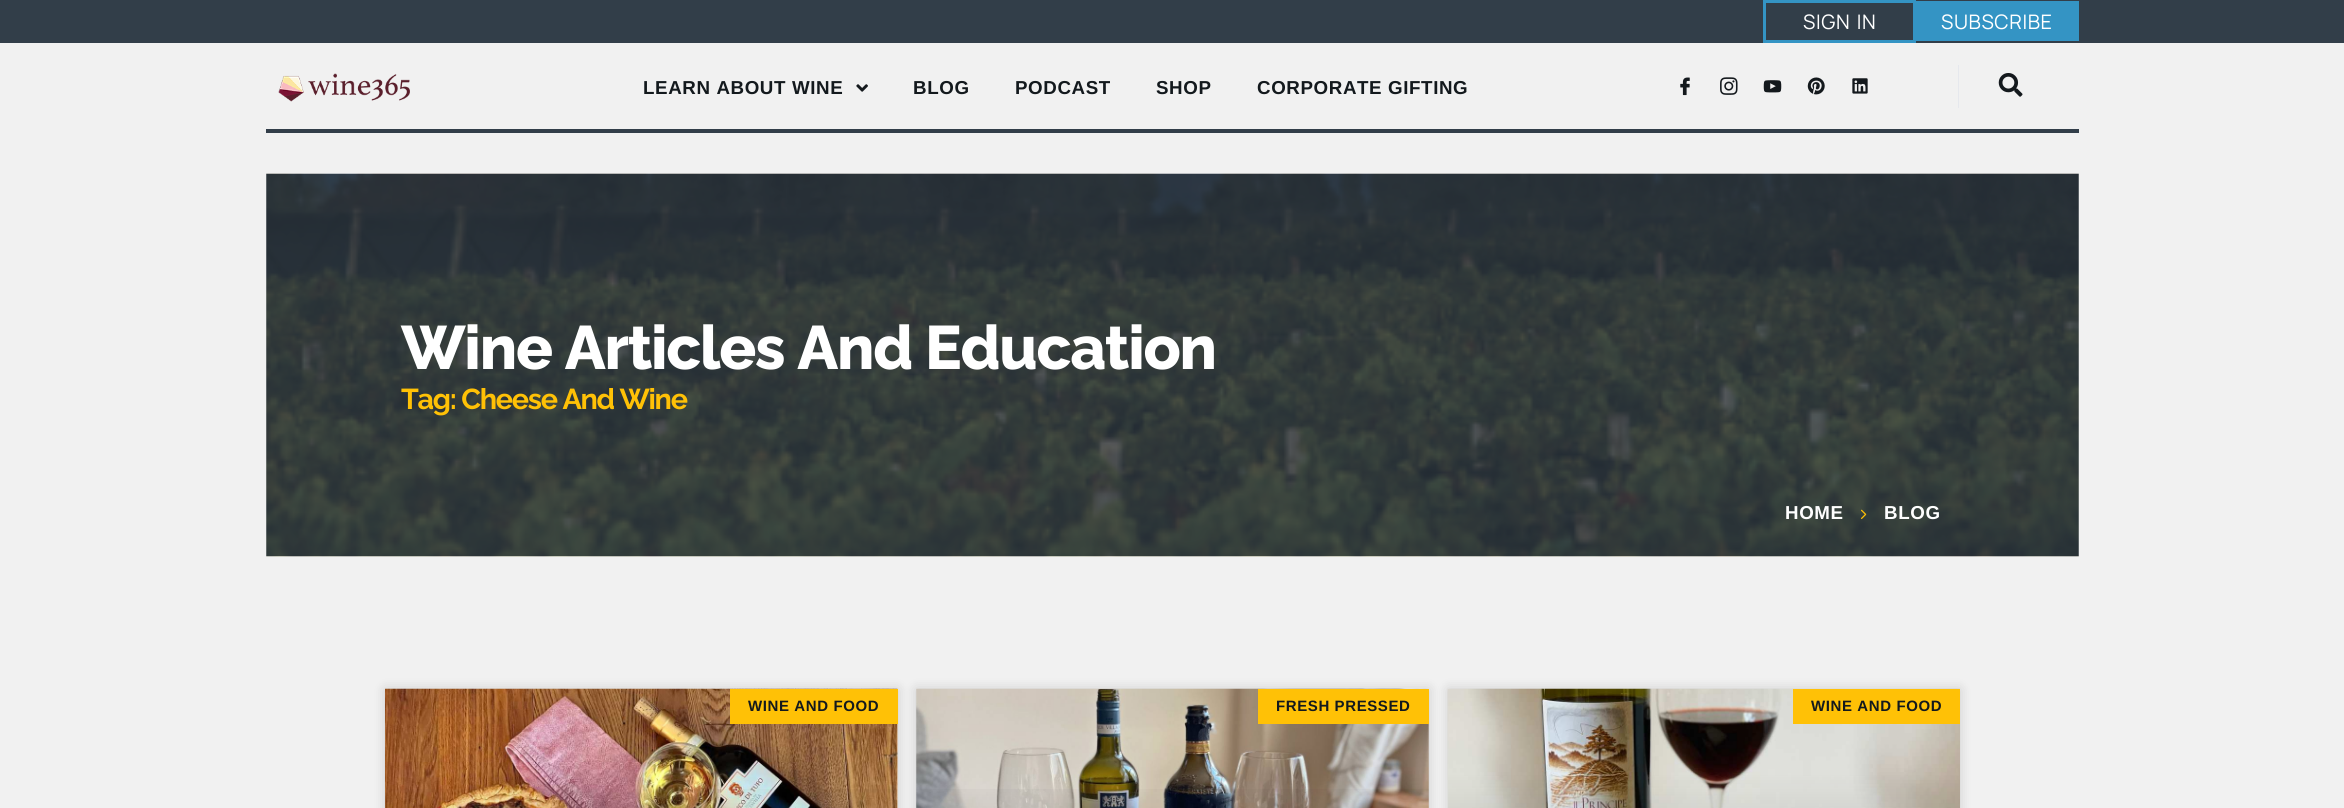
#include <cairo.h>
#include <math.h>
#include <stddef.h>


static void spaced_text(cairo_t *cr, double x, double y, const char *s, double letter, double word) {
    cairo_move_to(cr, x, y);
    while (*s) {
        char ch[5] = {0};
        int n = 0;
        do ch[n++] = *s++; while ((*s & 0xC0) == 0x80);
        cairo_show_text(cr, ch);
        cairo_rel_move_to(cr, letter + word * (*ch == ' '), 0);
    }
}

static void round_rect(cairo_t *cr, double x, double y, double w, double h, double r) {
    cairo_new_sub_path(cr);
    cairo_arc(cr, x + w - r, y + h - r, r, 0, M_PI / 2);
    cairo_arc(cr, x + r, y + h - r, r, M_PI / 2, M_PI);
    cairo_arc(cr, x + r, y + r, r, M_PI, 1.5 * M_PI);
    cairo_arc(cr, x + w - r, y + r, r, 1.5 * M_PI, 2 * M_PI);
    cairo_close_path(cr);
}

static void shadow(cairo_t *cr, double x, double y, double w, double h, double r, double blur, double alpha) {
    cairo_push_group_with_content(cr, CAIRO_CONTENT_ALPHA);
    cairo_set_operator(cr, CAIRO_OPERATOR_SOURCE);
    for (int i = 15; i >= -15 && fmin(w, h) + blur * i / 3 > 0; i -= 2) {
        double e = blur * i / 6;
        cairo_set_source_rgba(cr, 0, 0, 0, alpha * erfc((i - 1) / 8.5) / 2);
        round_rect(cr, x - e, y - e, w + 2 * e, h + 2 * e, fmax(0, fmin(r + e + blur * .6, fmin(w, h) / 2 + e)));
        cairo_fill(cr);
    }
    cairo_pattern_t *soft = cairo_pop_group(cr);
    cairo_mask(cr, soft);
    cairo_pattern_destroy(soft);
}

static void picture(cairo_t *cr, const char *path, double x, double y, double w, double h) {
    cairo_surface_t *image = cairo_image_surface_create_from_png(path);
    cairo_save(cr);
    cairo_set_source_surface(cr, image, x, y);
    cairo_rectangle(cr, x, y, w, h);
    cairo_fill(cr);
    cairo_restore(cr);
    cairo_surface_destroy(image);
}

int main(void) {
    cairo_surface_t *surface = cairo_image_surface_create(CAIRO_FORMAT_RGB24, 2344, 808);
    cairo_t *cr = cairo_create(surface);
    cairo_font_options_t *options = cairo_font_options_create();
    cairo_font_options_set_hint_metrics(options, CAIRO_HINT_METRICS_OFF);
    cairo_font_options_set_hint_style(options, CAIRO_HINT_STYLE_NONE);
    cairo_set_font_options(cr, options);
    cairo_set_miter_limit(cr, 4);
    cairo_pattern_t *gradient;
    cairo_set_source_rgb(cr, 0.945, 0.945, 0.945);
    cairo_paint(cr);
    cairo_set_source_rgb(cr, 0.196, 0.243, 0.286);
    cairo_rectangle(cr, 0, 0, 2344, 43);
    cairo_fill(cr);
    cairo_rectangle(cr, 1764.5, 1.5, 150, 40);
    cairo_set_source_rgb(cr, 0.204, 0.58, 0.769);
    cairo_set_line_width(cr, 3);
    cairo_stroke(cr);
    cairo_select_font_face(cr, "Manrope", CAIRO_FONT_SLANT_NORMAL, CAIRO_FONT_WEIGHT_NORMAL);
    cairo_set_font_size(cr, 20);
    cairo_set_source_rgb(cr, 1, 1, 1);
    spaced_text(cr, 1803, 29, "SIGN IN", 0.6, 2);
    cairo_set_source_rgb(cr, 0.204, 0.58, 0.769);
    cairo_rectangle(cr, 1916, 1, 163, 40);
    cairo_fill(cr);
    cairo_set_source_rgb(cr, 1, 1, 1);
    spaced_text(cr, 1941, 29, "SUBSCRIBE", 0.6, 0);
    cairo_set_source_rgb(cr, 0.196, 0.243, 0.286);
    cairo_rectangle(cr, 266, 129, 1813, 4);
    cairo_fill(cr);
    picture(cr, "img1.png", 278, 73, 132, 29);
    cairo_select_font_face(cr, "Liberation Sans", CAIRO_FONT_SLANT_NORMAL, CAIRO_FONT_WEIGHT_BOLD);
    cairo_set_font_size(cr, 18.75);
    cairo_set_source_rgb(cr, 0.078, 0.098, 0.114);
    spaced_text(cr, 643, 94, "LEARN ABOUT WINE", 0.6, 0);
    picture(cr, "img2.png", 856, 84, 12, 8);
    spaced_text(cr, 913, 94, "BLOG", 0.6, 0);
    spaced_text(cr, 1015, 94, "PODCAST", 0.6, 0);
    spaced_text(cr, 1156, 94, "SHOP", 0.6, 0);
    spaced_text(cr, 1257, 94, "CORPORATE GIFTING", 0.6, 0);
    picture(cr, "img3.png", 1680, 77, 10, 19);
    picture(cr, "img4.png", 1720, 77, 18, 18);
    picture(cr, "img5.png", 1763, 80, 19, 13);
    picture(cr, "img6.png", 1807, 77, 18, 18);
    picture(cr, "img7.png", 1852, 78, 16, 16);
    cairo_set_source_rgb(cr, 0.902, 0.91, 0.929);
    cairo_rectangle(cr, 1958, 65, 1, 43);
    cairo_fill(cr);
    picture(cr, "img8.png", 1998, 73, 25, 24);
    picture(cr, "img9.png", 266, 173, 1813, 384);
    cairo_select_font_face(cr, "Raleway ExtraBold", CAIRO_FONT_SLANT_NORMAL, CAIRO_FONT_WEIGHT_NORMAL);
    cairo_set_font_size(cr, 61.25);
    cairo_set_source_rgb(cr, 1, 1, 1);
    spaced_text(cr, 401, 369, "Wine Articles And Education", -1.25, 0);
    cairo_select_font_face(cr, "Raleway", CAIRO_FONT_SLANT_NORMAL, CAIRO_FONT_WEIGHT_BOLD);
    cairo_set_font_size(cr, 28.75);
    cairo_set_source_rgb(cr, 1, 0.757, 0.027);
    spaced_text(cr, 401, 409, "Tag: Cheese And Wine", -1.25, 0);
    cairo_select_font_face(cr, "Liberation Sans", CAIRO_FONT_SLANT_NORMAL, CAIRO_FONT_WEIGHT_BOLD);
    cairo_set_font_size(cr, 18.75);
    cairo_set_source_rgb(cr, 1, 1, 1);
    spaced_text(cr, 1785, 519, "HOME", 0.6, 0);
    picture(cr, "img10.png", 1861, 509, 6, 10);
    spaced_text(cr, 1884, 519, "BLOG", 0.6, 0);
    cairo_set_source_rgb(cr, 0, 0, 0);
    shadow(cr, 385, 689, 513, 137, 0, 6, 0.15);
    cairo_set_source_rgb(cr, 1, 1, 1);
    cairo_rectangle(cr, 897, 724, 1, 84);
    cairo_fill(cr);
    picture(cr, "img11.png", 385, 688, 513, 120);
    gradient = cairo_pattern_create_linear(641, 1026, 641, 689);
    cairo_pattern_add_color_stop_rgba(gradient, 0, 0, 0, 0, 0.35);
    cairo_pattern_add_color_stop_rgba(gradient, 0.75, 0, 0, 0, 0);
    cairo_set_source(cr, gradient);
    cairo_pattern_destroy(gradient);
    cairo_rectangle(cr, 385, 789, 513, 19);
    cairo_fill(cr);
    cairo_set_source_rgb(cr, 1, 0.757, 0.027);
    cairo_rectangle(cr, 730, 689, 168, 35);
    cairo_fill(cr);
    cairo_set_font_size(cr, 15);
    cairo_set_source_rgb(cr, 0.078, 0.098, 0.114);
    spaced_text(cr, 748, 711, "WINE AND FOOD", 0.6, 0);
    cairo_set_source_rgb(cr, 0, 0, 0);
    shadow(cr, 916, 689, 513, 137, 0, 6, 0.15);
    picture(cr, "img12.png", 916, 688, 513, 120);
    gradient = cairo_pattern_create_linear(1173, 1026, 1173, 689);
    cairo_pattern_add_color_stop_rgba(gradient, 0, 0, 0, 0, 0.35);
    cairo_pattern_add_color_stop_rgba(gradient, 0.75, 0, 0, 0, 0);
    cairo_set_source(cr, gradient);
    cairo_pattern_destroy(gradient);
    cairo_rectangle(cr, 916, 789, 513, 19);
    cairo_fill(cr);
    cairo_set_source_rgb(cr, 1, 0.757, 0.027);
    cairo_rectangle(cr, 1258, 689, 171, 35);
    cairo_fill(cr);
    cairo_set_source_rgb(cr, 0.078, 0.098, 0.114);
    spaced_text(cr, 1276, 711, "FRESH PRESSED", 0.6, 0);
    cairo_set_source_rgb(cr, 0, 0, 0);
    shadow(cr, 1448, 689, 512, 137, 0, 6, 0.15);
    picture(cr, "img13.png", 1447, 688, 513, 120);
    cairo_set_source_rgb(cr, 1, 0.757, 0.027);
    cairo_rectangle(cr, 1793, 689, 167, 35);
    cairo_fill(cr);
    cairo_set_source_rgb(cr, 0.078, 0.098, 0.114);
    spaced_text(cr, 1811, 711, "WINE AND FOOD", 0.6, 0);
    cairo_surface_write_to_png(surface, "page.png");
    cairo_font_options_destroy(options);
    cairo_destroy(cr);
    cairo_surface_destroy(surface);
    return 0;
}
